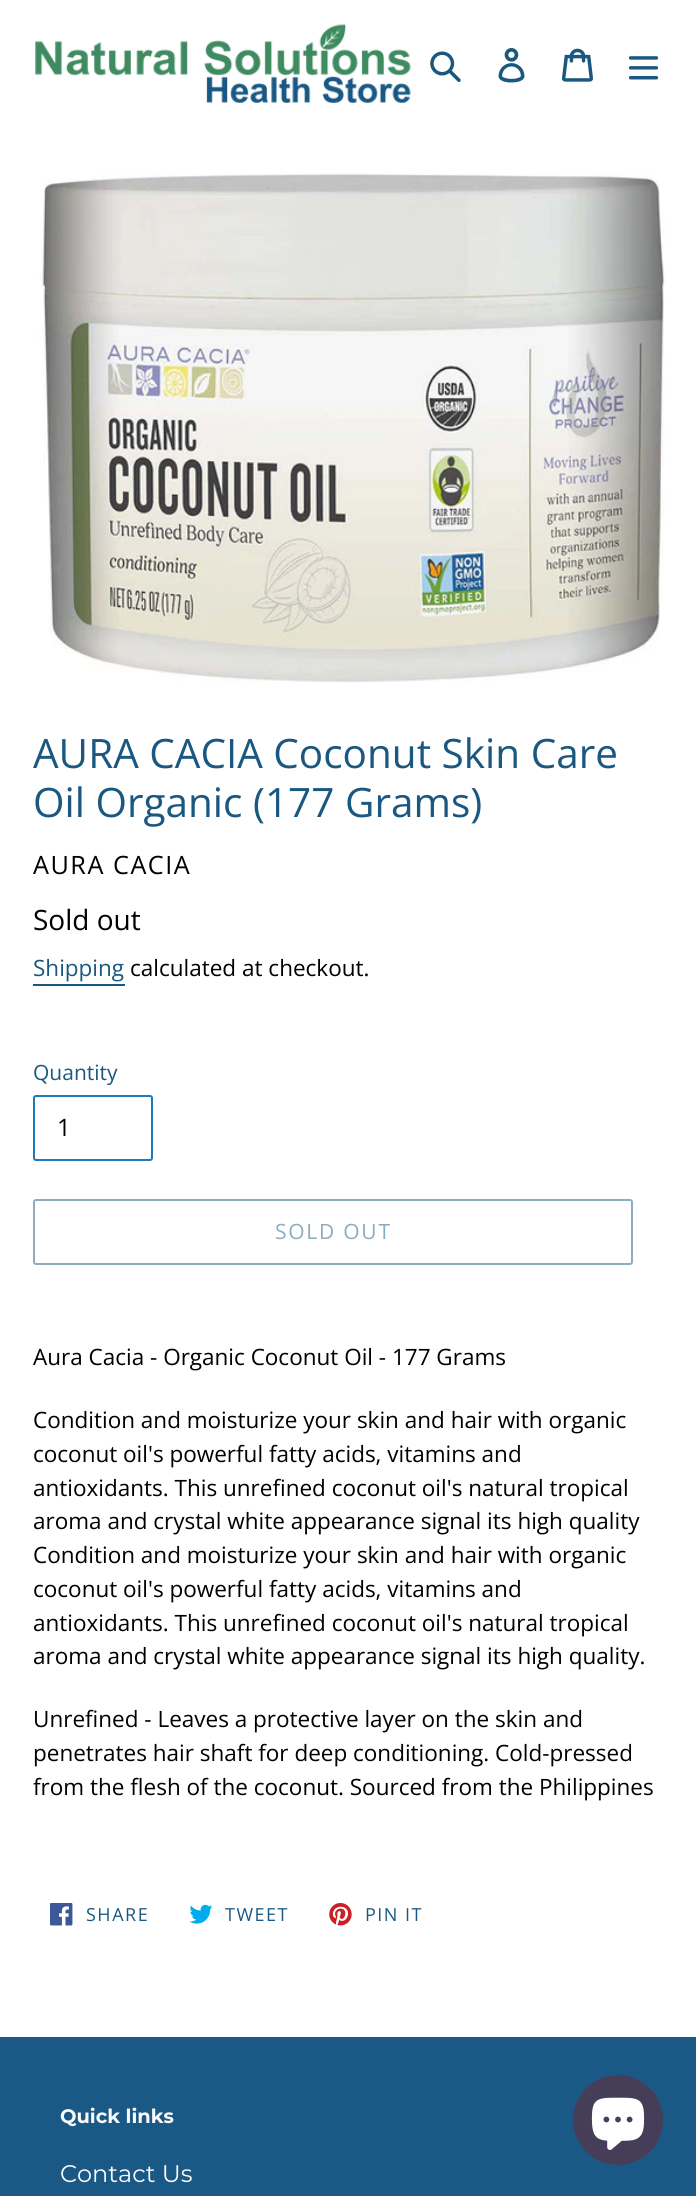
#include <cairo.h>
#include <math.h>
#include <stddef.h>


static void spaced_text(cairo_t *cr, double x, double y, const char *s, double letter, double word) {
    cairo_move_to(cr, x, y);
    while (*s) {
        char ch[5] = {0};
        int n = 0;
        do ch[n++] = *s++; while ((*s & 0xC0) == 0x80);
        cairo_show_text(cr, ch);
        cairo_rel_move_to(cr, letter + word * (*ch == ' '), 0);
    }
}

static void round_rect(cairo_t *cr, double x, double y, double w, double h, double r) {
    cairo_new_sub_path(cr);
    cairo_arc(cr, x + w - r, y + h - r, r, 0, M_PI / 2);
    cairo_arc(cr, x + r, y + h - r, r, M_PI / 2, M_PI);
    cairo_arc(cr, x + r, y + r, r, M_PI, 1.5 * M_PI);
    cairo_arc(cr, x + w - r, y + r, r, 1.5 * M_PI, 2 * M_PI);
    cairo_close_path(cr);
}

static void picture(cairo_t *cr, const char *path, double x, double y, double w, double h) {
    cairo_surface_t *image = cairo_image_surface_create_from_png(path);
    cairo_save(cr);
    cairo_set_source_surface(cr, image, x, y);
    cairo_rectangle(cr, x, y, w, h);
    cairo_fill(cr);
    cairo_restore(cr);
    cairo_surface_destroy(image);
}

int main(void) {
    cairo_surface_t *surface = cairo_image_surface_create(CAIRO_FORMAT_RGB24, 696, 2196);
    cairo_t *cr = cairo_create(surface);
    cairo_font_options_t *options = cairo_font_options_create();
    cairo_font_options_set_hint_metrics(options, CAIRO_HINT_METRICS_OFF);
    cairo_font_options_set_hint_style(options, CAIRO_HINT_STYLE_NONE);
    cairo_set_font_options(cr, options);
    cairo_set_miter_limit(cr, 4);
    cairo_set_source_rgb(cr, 1, 1, 1);
    cairo_paint(cr);
    picture(cr, "img1.png", 35, 24, 376, 79);
    picture(cr, "img2.png", 430, 51, 31, 31);
    picture(cr, "img3.png", 498, 48, 27, 35);
    picture(cr, "img4.png", 561, 48, 32, 34);
    picture(cr, "img5.png", 628, 56, 31, 24);
    picture(cr, "img6.png", 39, 173, 626, 510);
    cairo_select_font_face(cr, "Open Sans", CAIRO_FONT_SLANT_NORMAL, CAIRO_FONT_WEIGHT_NORMAL);
    cairo_set_font_size(cr, 40.5);
    cairo_set_source_rgb(cr, 0.102, 0.345, 0.506);
    cairo_move_to(cr, 33, 768);
    cairo_show_text(cr, "AURA CACIA Coconut Skin Care");
    cairo_move_to(cr, 33, 817);
    cairo_show_text(cr, "Oil Organic (177 Grams)");
    cairo_set_font_size(cr, 25.25);
    cairo_set_source_rgb(cr, 0, 0, 0);
    spaced_text(cr, 33, 874, "AURA CACIA", 1.5, 0);
    cairo_set_font_size(cr, 28);
    cairo_move_to(cr, 33, 930);
    cairo_show_text(cr, "Sold out");
    cairo_set_font_size(cr, 22.5);
    cairo_set_source_rgb(cr, 0.102, 0.345, 0.506);
    cairo_move_to(cr, 33, 976);
    cairo_show_text(cr, "Shipping");
    cairo_rectangle(cr, 33, 984, 92, 2);
    cairo_fill(cr);
    cairo_set_source_rgb(cr, 0, 0, 0);
    cairo_move_to(cr, 130, 976);
    cairo_show_text(cr, "calculated at checkout.");
    cairo_set_font_size(cr, 21);
    cairo_set_source_rgb(cr, 0.102, 0.345, 0.506);
    cairo_move_to(cr, 33, 1080);
    cairo_show_text(cr, "Quantity");
    round_rect(cr, 34, 1096, 118, 64, 2);
    cairo_set_source_rgb(cr, 0.098, 0.482, 0.741);
    cairo_stroke(cr);
    cairo_set_font_size(cr, 24);
    cairo_set_source_rgb(cr, 0, 0, 0);
    cairo_move_to(cr, 57, 1136);
    cairo_show_text(cr, "1");
    round_rect(cr, 34, 1200, 598, 64, 2);
    cairo_set_source_rgb(cr, 0.553, 0.675, 0.753);
    cairo_stroke(cr);
    cairo_set_font_size(cr, 21);
    spaced_text(cr, 275, 1239, "SOLD OUT", 1.75, 0);
    cairo_set_font_size(cr, 22.5);
    cairo_set_source_rgb(cr, 0, 0, 0);
    cairo_move_to(cr, 33, 1365);
    cairo_show_text(cr, "Aura Cacia - Organic Coconut Oil - 177 Grams");
    cairo_move_to(cr, 33, 1428);
    cairo_show_text(cr, "Condition and moisturize your skin and hair with organic");
    cairo_move_to(cr, 33, 1462);
    cairo_show_text(cr, "coconut oil's powerful fatty acids, vitamins and");
    cairo_move_to(cr, 33, 1496);
    cairo_show_text(cr, "antioxidants. This unrefined coconut oil's natural tropical");
    cairo_move_to(cr, 33, 1529);
    cairo_show_text(cr, "aroma and crystal white appearance signal its high quality");
    cairo_move_to(cr, 33, 1563);
    cairo_show_text(cr, "Condition and moisturize your skin and hair with organic");
    cairo_move_to(cr, 33, 1597);
    cairo_show_text(cr, "coconut oil's powerful fatty acids, vitamins and");
    cairo_move_to(cr, 33, 1631);
    cairo_show_text(cr, "antioxidants. This unrefined coconut oil's natural tropical");
    cairo_move_to(cr, 33, 1664);
    cairo_show_text(cr, "aroma and crystal white appearance signal its high quality.");
    cairo_move_to(cr, 33, 1727);
    cairo_show_text(cr, "Unrefined - Leaves a protective layer on the skin and");
    cairo_move_to(cr, 33, 1761);
    cairo_show_text(cr, "penetrates hair shaft for deep conditioning. Cold-pressed");
    cairo_move_to(cr, 33, 1795);
    cairo_show_text(cr, "from the flesh of the coconut. Sourced from the Philippines");
    picture(cr, "img7.png", 50, 1903, 23, 23);
    cairo_set_font_size(cr, 18);
    cairo_set_source_rgb(cr, 0.102, 0.345, 0.506);
    spaced_text(cr, 86, 1921, "SHARE", 1.5, 0);
    picture(cr, "img8.png", 189, 1904, 24, 20);
    spaced_text(cr, 225, 1921, "TWEET", 1.5, 0);
    picture(cr, "img9.png", 329, 1903, 23, 23);
    spaced_text(cr, 365, 1921, "PIN IT", 1.5, 0);
    cairo_set_source_rgb(cr, 0.102, 0.349, 0.522);
    cairo_rectangle(cr, 0, 2037, 696, 159);
    cairo_fill(cr);
    cairo_select_font_face(cr, "Montserrat", CAIRO_FONT_SLANT_NORMAL, CAIRO_FONT_WEIGHT_BOLD);
    cairo_set_font_size(cr, 19.5);
    cairo_set_source_rgb(cr, 0.98, 0.98, 0.98);
    cairo_move_to(cr, 60, 2123);
    cairo_show_text(cr, "Quick links");
    cairo_select_font_face(cr, "Montserrat", CAIRO_FONT_SLANT_NORMAL, CAIRO_FONT_WEIGHT_NORMAL);
    cairo_set_font_size(cr, 24);
    cairo_move_to(cr, 60, 2182);
    cairo_show_text(cr, "Contact Us");
    cairo_set_source_rgb(cr, 0.275, 0.239, 0.349);
    cairo_new_path(cr);
    cairo_arc(cr, 618, 2120, 45, 0, 2 * M_PI);
    cairo_fill(cr);
    picture(cr, "img10.png", 591, 2097, 54, 53);
    cairo_surface_write_to_png(surface, "page.png");
    cairo_font_options_destroy(options);
    cairo_destroy(cr);
    cairo_surface_destroy(surface);
    return 0;
}
